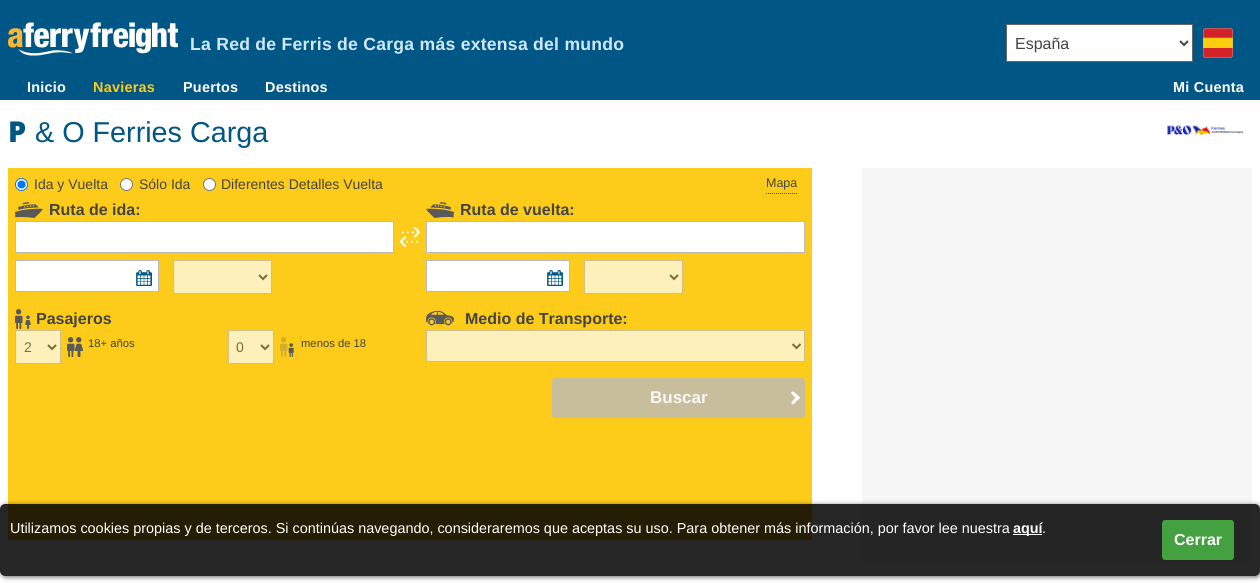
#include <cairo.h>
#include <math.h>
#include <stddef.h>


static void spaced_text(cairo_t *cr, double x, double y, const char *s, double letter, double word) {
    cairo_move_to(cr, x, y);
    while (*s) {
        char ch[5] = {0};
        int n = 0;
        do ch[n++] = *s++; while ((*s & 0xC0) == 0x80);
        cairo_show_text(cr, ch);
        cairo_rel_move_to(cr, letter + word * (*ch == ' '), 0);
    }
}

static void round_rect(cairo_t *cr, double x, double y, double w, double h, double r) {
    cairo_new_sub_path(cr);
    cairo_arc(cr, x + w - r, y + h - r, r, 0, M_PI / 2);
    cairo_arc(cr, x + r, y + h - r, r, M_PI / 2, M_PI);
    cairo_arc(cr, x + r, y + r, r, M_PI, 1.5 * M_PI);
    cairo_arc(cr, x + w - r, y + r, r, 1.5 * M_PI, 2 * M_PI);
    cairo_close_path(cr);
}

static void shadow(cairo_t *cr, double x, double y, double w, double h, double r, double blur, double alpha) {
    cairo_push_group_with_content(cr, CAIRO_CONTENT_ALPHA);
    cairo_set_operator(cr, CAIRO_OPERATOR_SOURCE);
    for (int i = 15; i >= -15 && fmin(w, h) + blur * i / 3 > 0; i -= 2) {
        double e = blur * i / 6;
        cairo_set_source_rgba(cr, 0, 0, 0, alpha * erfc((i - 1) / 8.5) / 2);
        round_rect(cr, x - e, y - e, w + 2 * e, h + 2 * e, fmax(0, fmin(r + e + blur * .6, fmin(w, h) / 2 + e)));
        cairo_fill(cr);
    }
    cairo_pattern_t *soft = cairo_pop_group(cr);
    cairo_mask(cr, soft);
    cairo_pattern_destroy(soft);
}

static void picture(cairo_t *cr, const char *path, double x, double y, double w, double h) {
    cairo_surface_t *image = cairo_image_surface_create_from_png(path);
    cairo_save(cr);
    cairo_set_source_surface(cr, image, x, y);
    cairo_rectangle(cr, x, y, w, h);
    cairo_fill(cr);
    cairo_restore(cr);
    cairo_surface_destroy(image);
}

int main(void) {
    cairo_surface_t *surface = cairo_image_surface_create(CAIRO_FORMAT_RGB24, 1260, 583);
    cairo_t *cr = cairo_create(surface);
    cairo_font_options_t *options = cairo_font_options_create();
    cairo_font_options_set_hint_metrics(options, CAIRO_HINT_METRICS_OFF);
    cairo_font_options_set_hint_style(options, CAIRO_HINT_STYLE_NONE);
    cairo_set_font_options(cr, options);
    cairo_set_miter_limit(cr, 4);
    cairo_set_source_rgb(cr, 1, 1, 1);
    cairo_paint(cr);
    cairo_set_source_rgb(cr, 0, 0.337, 0.518);
    cairo_rectangle(cr, 0, 0, 1260, 100);
    cairo_fill(cr);
    cairo_set_source_rgb(cr, 1, 1, 1);
    cairo_rectangle(cr, 1006.5, 24.5, 186, 37);
    cairo_fill_preserve(cr);
    cairo_set_source_rgb(cr, 0.4, 0.4, 0.4);
    cairo_set_line_width(cr, 1);
    cairo_stroke(cr);
    cairo_new_path(cr);
    cairo_move_to(cr, 1180, 41);
    cairo_line_to(cr, 1184, 45);
    cairo_line_to(cr, 1188, 41);
    cairo_set_source_rgb(cr, 0.267, 0.267, 0.267);
    cairo_set_line_width(cr, 2);
    cairo_stroke(cr);
    cairo_select_font_face(cr, "Liberation Sans", CAIRO_FONT_SLANT_NORMAL, CAIRO_FONT_WEIGHT_NORMAL);
    cairo_set_font_size(cr, 16);
    cairo_move_to(cr, 1015, 49);
    cairo_show_text(cr, "España");
    picture(cr, "img1.png", 1203, 28, 30, 30);
    cairo_select_font_face(cr, "Liberation Sans", CAIRO_FONT_SLANT_NORMAL, CAIRO_FONT_WEIGHT_BOLD);
    cairo_set_font_size(cr, 14.4);
    cairo_set_source_rgb(cr, 1, 1, 1);
    spaced_text(cr, 27, 92, "Inicio", 0.25, 0);
    cairo_set_source_rgb(cr, 0.992, 0.8, 0.102);
    spaced_text(cr, 93, 92, "Navieras", 0.25, 0);
    cairo_set_source_rgb(cr, 1, 1, 1);
    spaced_text(cr, 183, 92, "Puertos", 0.25, 0);
    spaced_text(cr, 265, 92, "Destinos", 0.25, 0);
    spaced_text(cr, 1173, 92, "Mi Cuenta", 0.25, 0);
    picture(cr, "img2.png", 8, 22, 170, 34);
    cairo_set_font_size(cr, 17.6);
    cairo_set_source_rgb(cr, 0.82, 0.91, 1);
    spaced_text(cr, 190, 50, "La Red de Ferris de Carga más extensa del mundo", 0.25, 0);
    cairo_select_font_face(cr, "Noto Sans Black", CAIRO_FONT_SLANT_NORMAL, CAIRO_FONT_WEIGHT_NORMAL);
    cairo_set_font_size(cr, 28.75);
    cairo_set_source_rgb(cr, 0, 0.337, 0.518);
    cairo_move_to(cr, 8, 142);
    cairo_show_text(cr, "P");
    cairo_select_font_face(cr, "Liberation Sans", CAIRO_FONT_SLANT_NORMAL, CAIRO_FONT_WEIGHT_NORMAL);
    cairo_move_to(cr, 35, 142);
    cairo_show_text(cr, "& O Ferries Carga");
    picture(cr, "img3.png", 1166, 125, 78, 10);
    cairo_set_source_rgb(cr, 0.992, 0.8, 0.102);
    cairo_rectangle(cr, 8, 168, 804, 372);
    cairo_fill(cr);
    cairo_set_source_rgb(cr, 1, 1, 1);
    cairo_arc(cr, 21.5, 184.5, 6, 0, 2 * M_PI);
    cairo_fill_preserve(cr);
    cairo_set_source_rgb(cr, 0, 0.459, 1);
    cairo_set_line_width(cr, 1);
    cairo_stroke(cr);
    cairo_arc(cr, 21.5, 184.5, 4, 0, 2 * M_PI);
    cairo_fill(cr);
    cairo_set_font_size(cr, 14);
    cairo_set_source_rgb(cr, 0.267, 0.267, 0.267);
    cairo_move_to(cr, 34, 189);
    cairo_show_text(cr, "Ida y Vuelta");
    cairo_set_source_rgb(cr, 1, 1, 1);
    cairo_new_path(cr);
    cairo_arc(cr, 126.5, 184.5, 6, 0, 2 * M_PI);
    cairo_fill_preserve(cr);
    cairo_set_source_rgb(cr, 0.463, 0.463, 0.463);
    cairo_stroke(cr);
    cairo_set_source_rgb(cr, 0.267, 0.267, 0.267);
    cairo_move_to(cr, 139, 189);
    cairo_show_text(cr, "Sólo Ida");
    cairo_set_source_rgb(cr, 1, 1, 1);
    cairo_new_path(cr);
    cairo_arc(cr, 209.5, 184.5, 6, 0, 2 * M_PI);
    cairo_fill_preserve(cr);
    cairo_set_source_rgb(cr, 0.463, 0.463, 0.463);
    cairo_stroke(cr);
    cairo_set_source_rgb(cr, 0.267, 0.267, 0.267);
    cairo_move_to(cr, 221, 189);
    cairo_show_text(cr, "Diferentes Detalles Vuelta");
    cairo_new_path(cr);
    cairo_move_to(cr, 766, 193.5);
    cairo_line_to(cr, 798, 193.5);
    cairo_set_dash(cr, (double[]){1, 1}, 2, 0);
    cairo_stroke(cr);
    cairo_set_font_size(cr, 12.5);
    cairo_move_to(cr, 766, 187);
    cairo_show_text(cr, "Mapa");
    picture(cr, "img4.png", 15, 202, 28, 16);
    cairo_select_font_face(cr, "Liberation Sans", CAIRO_FONT_SLANT_NORMAL, CAIRO_FONT_WEIGHT_BOLD);
    cairo_set_font_size(cr, 16);
    cairo_move_to(cr, 49, 215);
    cairo_show_text(cr, "Ruta de ida:");
    cairo_set_source_rgb(cr, 1, 1, 1);
    cairo_rectangle(cr, 15.5, 221.5, 378, 31);
    cairo_fill_preserve(cr);
    cairo_set_source_rgb(cr, 0.733, 0.733, 0.733);
    cairo_set_dash(cr, NULL, 0, 0);
    cairo_stroke(cr);
    cairo_set_source_rgb(cr, 1, 1, 1);
    cairo_rectangle(cr, 15.5, 260.5, 143, 31);
    cairo_fill_preserve(cr);
    cairo_set_source_rgb(cr, 0.733, 0.733, 0.733);
    cairo_stroke(cr);
    picture(cr, "img5.png", 136, 270, 16, 16);
    cairo_set_source_rgb(cr, 0.996, 0.941, 0.729);
    cairo_rectangle(cr, 173.5, 260.5, 98, 33);
    cairo_fill_preserve(cr);
    cairo_set_source_rgb(cr, 0.812, 0.753, 0.545);
    cairo_stroke(cr);
    cairo_new_path(cr);
    cairo_move_to(cr, 259, 275);
    cairo_line_to(cr, 263, 279);
    cairo_line_to(cr, 267, 275);
    cairo_set_source_rgb(cr, 0.486, 0.427, 0.216);
    cairo_set_line_width(cr, 2);
    cairo_stroke(cr);
    picture(cr, "img6.png", 15, 309, 16, 20);
    cairo_set_source_rgb(cr, 0.267, 0.267, 0.267);
    cairo_move_to(cr, 36, 324);
    cairo_show_text(cr, "Pasajeros");
    cairo_set_source_rgb(cr, 0.996, 0.941, 0.729);
    cairo_rectangle(cr, 15.5, 330.5, 45, 33);
    cairo_fill_preserve(cr);
    cairo_set_source_rgb(cr, 0.812, 0.753, 0.545);
    cairo_set_line_width(cr, 1);
    cairo_stroke(cr);
    cairo_new_path(cr);
    cairo_move_to(cr, 48, 345);
    cairo_line_to(cr, 52, 349);
    cairo_line_to(cr, 56, 345);
    cairo_set_source_rgb(cr, 0.486, 0.427, 0.216);
    cairo_set_line_width(cr, 2);
    cairo_stroke(cr);
    cairo_select_font_face(cr, "Liberation Sans", CAIRO_FONT_SLANT_NORMAL, CAIRO_FONT_WEIGHT_NORMAL);
    cairo_set_font_size(cr, 14);
    cairo_move_to(cr, 24, 352);
    cairo_show_text(cr, "2");
    picture(cr, "img7.png", 67, 337, 16, 20);
    cairo_set_font_size(cr, 11.25);
    cairo_set_source_rgb(cr, 0.267, 0.267, 0.267);
    cairo_move_to(cr, 88, 347);
    cairo_show_text(cr, "18+ años");
    cairo_set_source_rgb(cr, 0.996, 0.941, 0.729);
    cairo_rectangle(cr, 228.5, 330.5, 45, 33);
    cairo_fill_preserve(cr);
    cairo_set_source_rgb(cr, 0.812, 0.753, 0.545);
    cairo_set_line_width(cr, 1);
    cairo_stroke(cr);
    cairo_new_path(cr);
    cairo_move_to(cr, 261, 345);
    cairo_line_to(cr, 265, 349);
    cairo_line_to(cr, 269, 345);
    cairo_set_source_rgb(cr, 0.486, 0.427, 0.216);
    cairo_set_line_width(cr, 2);
    cairo_stroke(cr);
    cairo_set_font_size(cr, 14);
    cairo_move_to(cr, 236, 352);
    cairo_show_text(cr, "0");
    picture(cr, "img8.png", 280, 337, 14, 20);
    cairo_set_font_size(cr, 11.25);
    cairo_set_source_rgb(cr, 0.267, 0.267, 0.267);
    cairo_move_to(cr, 301, 347);
    cairo_show_text(cr, "menos de 18");
    picture(cr, "img9.png", 426, 311, 29, 15);
    cairo_select_font_face(cr, "Liberation Sans", CAIRO_FONT_SLANT_NORMAL, CAIRO_FONT_WEIGHT_BOLD);
    cairo_set_font_size(cr, 16);
    cairo_move_to(cr, 465, 324);
    cairo_show_text(cr, "Medio de Transporte:");
    cairo_set_source_rgb(cr, 0.996, 0.941, 0.729);
    cairo_rectangle(cr, 426.5, 330.5, 378, 31);
    cairo_fill_preserve(cr);
    cairo_set_source_rgb(cr, 0.812, 0.753, 0.545);
    cairo_set_line_width(cr, 1);
    cairo_stroke(cr);
    cairo_new_path(cr);
    cairo_move_to(cr, 792.5, 344);
    cairo_line_to(cr, 796.5, 348);
    cairo_line_to(cr, 800.5, 344);
    cairo_set_source_rgb(cr, 0.486, 0.427, 0.216);
    cairo_set_line_width(cr, 2);
    cairo_stroke(cr);
    picture(cr, "img10.png", 426, 202, 28, 16);
    cairo_set_source_rgb(cr, 0.267, 0.267, 0.267);
    cairo_move_to(cr, 460, 215);
    cairo_show_text(cr, "Ruta de vuelta:");
    cairo_set_source_rgb(cr, 1, 1, 1);
    cairo_rectangle(cr, 426.5, 221.5, 378, 31);
    cairo_fill_preserve(cr);
    cairo_set_source_rgb(cr, 0.733, 0.733, 0.733);
    cairo_set_line_width(cr, 1);
    cairo_stroke(cr);
    cairo_set_source_rgb(cr, 1, 1, 1);
    cairo_rectangle(cr, 426.5, 260.5, 143, 31);
    cairo_fill_preserve(cr);
    cairo_set_source_rgb(cr, 0.733, 0.733, 0.733);
    cairo_stroke(cr);
    picture(cr, "img5.png", 547, 270, 16, 16);
    cairo_set_source_rgb(cr, 0.996, 0.941, 0.729);
    cairo_rectangle(cr, 584.5, 260.5, 98, 33);
    cairo_fill_preserve(cr);
    cairo_set_source_rgb(cr, 0.812, 0.753, 0.545);
    cairo_stroke(cr);
    cairo_new_path(cr);
    cairo_move_to(cr, 670, 275);
    cairo_line_to(cr, 674, 279);
    cairo_line_to(cr, 678, 275);
    cairo_set_source_rgb(cr, 0.486, 0.427, 0.216);
    cairo_set_line_width(cr, 2);
    cairo_stroke(cr);
    picture(cr, "img11.png", 400, 227, 20, 20);
    cairo_set_source_rgb(cr, 0.784, 0.745, 0.608);
    round_rect(cr, 552, 378, 253, 40, 3);
    cairo_fill(cr);
    cairo_set_font_size(cr, 17);
    cairo_set_source_rgb(cr, 0.961, 0.961, 0.961);
    cairo_move_to(cr, 650, 403);
    cairo_show_text(cr, "Buscar");
    cairo_set_source_rgb(cr, 1, 1, 1);
    cairo_new_path(cr);
    cairo_move_to(cr, 792, 401.5);
    cairo_line_to(cr, 797, 396);
    cairo_curve_to(cr, 798.5, 395.5, 800, 397, 799.5, 398.5);
    cairo_line_to(cr, 796.5, 401);
    cairo_curve_to(cr, 796, 402, 792, 406.5, 791.5, 403);
    cairo_close_path(cr);
    cairo_fill(cr);
    cairo_new_path(cr);
    cairo_move_to(cr, 794, 392);
    cairo_line_to(cr, 799.5, 397);
    cairo_curve_to(cr, 800, 398.5, 798.5, 399.5, 797, 399);
    cairo_line_to(cr, 794, 396.5);
    cairo_curve_to(cr, 793.5, 396, 789, 392, 792.5, 391.5);
    cairo_close_path(cr);
    cairo_fill(cr);
    cairo_set_source_rgb(cr, 0.961, 0.961, 0.961);
    cairo_rectangle(cr, 862, 168, 390, 395);
    cairo_fill(cr);
    cairo_save(cr);
    cairo_set_fill_rule(cr, CAIRO_FILL_RULE_EVEN_ODD);
    cairo_new_path(cr);
    cairo_move_to(cr, 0, 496);
    cairo_line_to(cr, 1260, 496);
    cairo_line_to(cr, 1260, 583);
    cairo_line_to(cr, 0, 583);
    cairo_close_path(cr);
    cairo_move_to(cr, 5, 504);
    cairo_line_to(cr, 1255, 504);
    cairo_curve_to(cr, 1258, 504, 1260, 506, 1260, 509);
    cairo_line_to(cr, 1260, 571);
    cairo_curve_to(cr, 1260, 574, 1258, 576, 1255, 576);
    cairo_line_to(cr, 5, 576);
    cairo_curve_to(cr, 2, 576, 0, 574, 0, 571);
    cairo_line_to(cr, 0, 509);
    cairo_curve_to(cr, 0, 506, 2, 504, 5, 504);
    cairo_close_path(cr);
    cairo_clip(cr);
    cairo_set_source_rgb(cr, 0, 0, 0);
    shadow(cr, 1, 505, 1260, 72, 5, 2.5, 0.6);
    cairo_restore(cr);
    cairo_set_source_rgba(cr, 0, 0, 0, 0.85);
    round_rect(cr, 0, 504, 1260, 72, 5);
    cairo_fill(cr);
    cairo_select_font_face(cr, "Liberation Sans", CAIRO_FONT_SLANT_NORMAL, CAIRO_FONT_WEIGHT_NORMAL);
    cairo_set_font_size(cr, 14.4);
    cairo_set_source_rgb(cr, 1, 1, 1);
    cairo_move_to(cr, 10, 533);
    cairo_show_text(cr, "Utilizamos cookies propias y de terceros. Si continúas navegando, consideraremos que aceptas su uso. Para obtener más información, por favor lee nuestra");
    cairo_rectangle(cr, 1013, 534, 29, 1);
    cairo_fill(cr);
    cairo_select_font_face(cr, "Liberation Sans", CAIRO_FONT_SLANT_NORMAL, CAIRO_FONT_WEIGHT_BOLD);
    cairo_move_to(cr, 1013, 533);
    cairo_show_text(cr, "aquí");
    cairo_select_font_face(cr, "Liberation Sans", CAIRO_FONT_SLANT_NORMAL, CAIRO_FONT_WEIGHT_NORMAL);
    cairo_move_to(cr, 1042, 533);
    cairo_show_text(cr, ".");
    cairo_set_source_rgb(cr, 0.267, 0.631, 0.247);
    round_rect(cr, 1162, 520, 72, 40, 3);
    cairo_fill(cr);
    cairo_select_font_face(cr, "Liberation Sans", CAIRO_FONT_SLANT_NORMAL, CAIRO_FONT_WEIGHT_BOLD);
    cairo_set_font_size(cr, 16);
    cairo_set_source_rgb(cr, 1, 1, 1);
    cairo_move_to(cr, 1174, 545);
    cairo_show_text(cr, "Cerrar");
    cairo_surface_write_to_png(surface, "page.png");
    cairo_font_options_destroy(options);
    cairo_destroy(cr);
    cairo_surface_destroy(surface);
    return 0;
}
